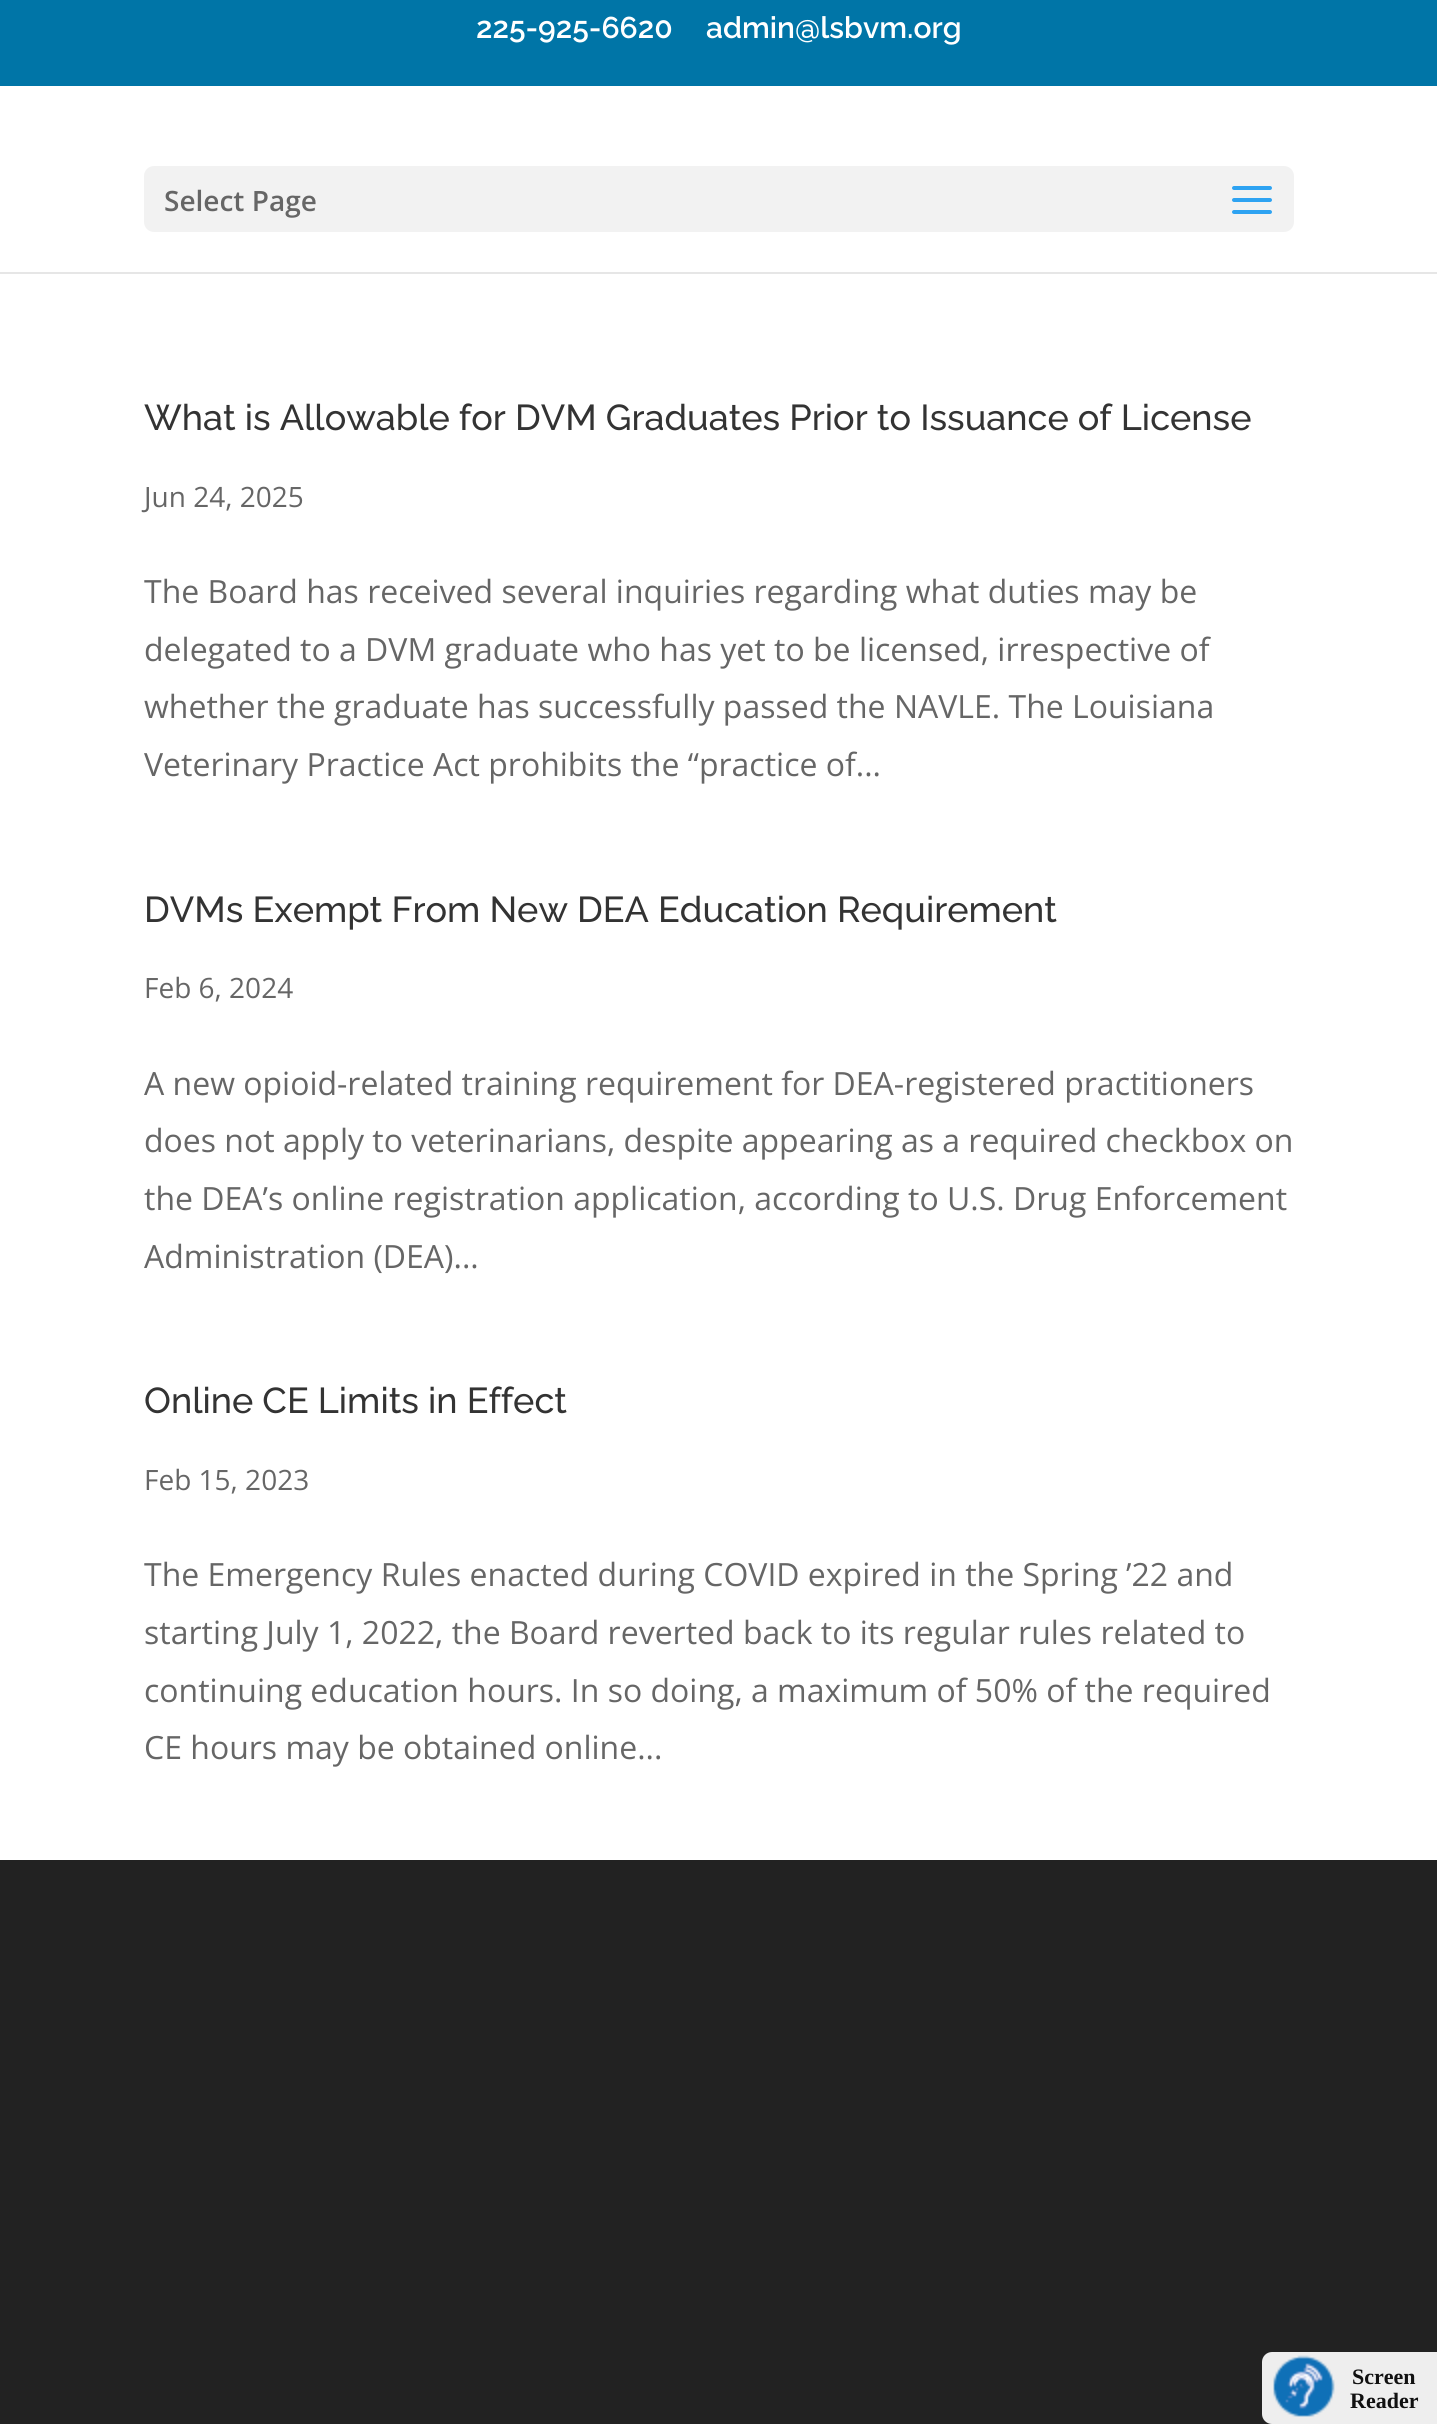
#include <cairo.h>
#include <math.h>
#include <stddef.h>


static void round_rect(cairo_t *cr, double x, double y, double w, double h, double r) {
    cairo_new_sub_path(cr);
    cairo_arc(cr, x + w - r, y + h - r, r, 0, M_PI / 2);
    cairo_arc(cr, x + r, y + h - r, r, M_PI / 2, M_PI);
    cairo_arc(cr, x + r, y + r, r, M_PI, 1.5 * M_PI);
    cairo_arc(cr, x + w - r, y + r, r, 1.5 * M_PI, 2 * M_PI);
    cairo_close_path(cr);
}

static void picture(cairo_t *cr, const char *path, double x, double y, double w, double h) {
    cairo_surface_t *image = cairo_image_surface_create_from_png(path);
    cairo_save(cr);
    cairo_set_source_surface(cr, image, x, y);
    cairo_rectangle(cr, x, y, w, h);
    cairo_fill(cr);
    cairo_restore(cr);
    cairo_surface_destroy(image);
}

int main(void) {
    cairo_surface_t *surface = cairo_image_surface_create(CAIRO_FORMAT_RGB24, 1437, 2424);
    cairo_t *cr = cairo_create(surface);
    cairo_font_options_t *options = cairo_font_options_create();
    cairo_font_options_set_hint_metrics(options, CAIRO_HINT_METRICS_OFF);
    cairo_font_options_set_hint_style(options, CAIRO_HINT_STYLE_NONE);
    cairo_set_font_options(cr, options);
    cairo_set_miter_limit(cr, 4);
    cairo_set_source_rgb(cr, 1, 1, 1);
    cairo_paint(cr);
    cairo_set_source_rgb(cr, 0, 0.459, 0.655);
    cairo_rectangle(cr, 0, 0, 1437, 86);
    cairo_fill(cr);
    cairo_select_font_face(cr, "Raleway SemiBold", CAIRO_FONT_SLANT_NORMAL, CAIRO_FONT_WEIGHT_NORMAL);
    cairo_set_font_size(cr, 30);
    cairo_set_source_rgb(cr, 1, 1, 1);
    cairo_move_to(cr, 476, 38);
    cairo_show_text(cr, "225-925-6620");
    cairo_move_to(cr, 706, 38);
    cairo_show_text(cr, "admin@lsbvm.org");
    cairo_set_source_rgb(cr, 0.902, 0.902, 0.902);
    cairo_rectangle(cr, 0, 272, 1437, 2);
    cairo_fill(cr);
    cairo_set_source_rgb(cr, 0.949, 0.949, 0.949);
    round_rect(cr, 144, 166, 1150, 66, 10);
    cairo_fill(cr);
    cairo_select_font_face(cr, "Open Sans SemiBold", CAIRO_FONT_SLANT_NORMAL, CAIRO_FONT_WEIGHT_NORMAL);
    cairo_set_font_size(cr, 28);
    cairo_set_source_rgb(cr, 0.4, 0.4, 0.4);
    cairo_move_to(cr, 164, 211);
    cairo_show_text(cr, "Select Page");
    picture(cr, "img1.png", 1232, 186, 40, 28);
    cairo_select_font_face(cr, "Raleway Medium", CAIRO_FONT_SLANT_NORMAL, CAIRO_FONT_WEIGHT_NORMAL);
    cairo_set_font_size(cr, 36);
    cairo_set_source_rgb(cr, 0.2, 0.2, 0.2);
    cairo_move_to(cr, 144, 430);
    cairo_show_text(cr, "What is Allowable for DVM Graduates Prior to Issuance of License");
    cairo_select_font_face(cr, "Open Sans", CAIRO_FONT_SLANT_NORMAL, CAIRO_FONT_WEIGHT_NORMAL);
    cairo_set_font_size(cr, 28);
    cairo_set_source_rgb(cr, 0.4, 0.4, 0.4);
    cairo_move_to(cr, 144, 507);
    cairo_show_text(cr, "Jun 24, 2025");
    cairo_set_font_size(cr, 32);
    cairo_move_to(cr, 144, 603);
    cairo_show_text(cr, "The Board has received several inquiries regarding what duties may be");
    cairo_move_to(cr, 144, 661);
    cairo_show_text(cr, "delegated to a DVM graduate who has yet to be licensed, irrespective of");
    cairo_move_to(cr, 144, 718);
    cairo_show_text(cr, "whether the graduate has successfully passed the NAVLE. The Louisiana");
    cairo_move_to(cr, 144, 776);
    cairo_show_text(cr, "Veterinary Practice Act prohibits the “practice of...");
    cairo_select_font_face(cr, "Raleway Medium", CAIRO_FONT_SLANT_NORMAL, CAIRO_FONT_WEIGHT_NORMAL);
    cairo_set_font_size(cr, 36);
    cairo_set_source_rgb(cr, 0.2, 0.2, 0.2);
    cairo_move_to(cr, 144, 922);
    cairo_show_text(cr, "DVMs Exempt From New DEA Education Requirement");
    cairo_select_font_face(cr, "Open Sans", CAIRO_FONT_SLANT_NORMAL, CAIRO_FONT_WEIGHT_NORMAL);
    cairo_set_font_size(cr, 28);
    cairo_set_source_rgb(cr, 0.4, 0.4, 0.4);
    cairo_move_to(cr, 144, 998);
    cairo_show_text(cr, "Feb 6, 2024");
    cairo_set_font_size(cr, 32);
    cairo_move_to(cr, 144, 1095);
    cairo_show_text(cr, "A new opioid-related training requirement for DEA-registered practitioners");
    cairo_move_to(cr, 144, 1152);
    cairo_show_text(cr, "does not apply to veterinarians, despite appearing as a required checkbox on");
    cairo_move_to(cr, 144, 1210);
    cairo_show_text(cr, "the DEA’s online registration application, according to U.S. Drug Enforcement");
    cairo_move_to(cr, 144, 1268);
    cairo_show_text(cr, "Administration (DEA)...");
    cairo_select_font_face(cr, "Raleway Medium", CAIRO_FONT_SLANT_NORMAL, CAIRO_FONT_WEIGHT_NORMAL);
    cairo_set_font_size(cr, 36);
    cairo_set_source_rgb(cr, 0.2, 0.2, 0.2);
    cairo_move_to(cr, 144, 1413);
    cairo_show_text(cr, "Online CE Limits in Effect");
    cairo_select_font_face(cr, "Open Sans", CAIRO_FONT_SLANT_NORMAL, CAIRO_FONT_WEIGHT_NORMAL);
    cairo_set_font_size(cr, 28);
    cairo_set_source_rgb(cr, 0.4, 0.4, 0.4);
    cairo_move_to(cr, 144, 1490);
    cairo_show_text(cr, "Feb 15, 2023");
    cairo_set_font_size(cr, 32);
    cairo_move_to(cr, 144, 1586);
    cairo_show_text(cr, "The Emergency Rules enacted during COVID expired in the Spring ’22 and");
    cairo_move_to(cr, 144, 1644);
    cairo_show_text(cr, "starting July 1, 2022, the Board reverted back to its regular rules related to");
    cairo_move_to(cr, 144, 1702);
    cairo_show_text(cr, "continuing education hours. In so doing, a maximum of 50% of the required");
    cairo_move_to(cr, 144, 1759);
    cairo_show_text(cr, "CE hours may be obtained online...");
    cairo_set_source_rgb(cr, 0.133, 0.133, 0.133);
    cairo_rectangle(cr, 0, 1860, 1437, 564);
    cairo_fill(cr);
    cairo_set_source_rgb(cr, 0.933, 0.933, 0.933);
    cairo_new_path(cr);
    cairo_move_to(cr, 1272, 2352);
    cairo_line_to(cr, 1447, 2352);
    cairo_line_to(cr, 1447, 2424);
    cairo_line_to(cr, 1272, 2424);
    cairo_curve_to(cr, 1266.5, 2424, 1262, 2419.5, 1262, 2414);
    cairo_line_to(cr, 1262, 2362);
    cairo_curve_to(cr, 1262, 2356.5, 1266.5, 2352, 1272, 2352);
    cairo_close_path(cr);
    cairo_fill(cr);
    picture(cr, "img2.png", 1273, 2355, 62, 62);
    cairo_select_font_face(cr, "Liberation Serif", CAIRO_FONT_SLANT_NORMAL, CAIRO_FONT_WEIGHT_BOLD);
    cairo_set_font_size(cr, 22);
    cairo_set_source_rgb(cr, 0.067, 0.067, 0.067);
    cairo_move_to(cr, 1352, 2384);
    cairo_show_text(cr, "Screen");
    cairo_move_to(cr, 1350, 2408);
    cairo_show_text(cr, "Reader");
    cairo_surface_write_to_png(surface, "page.png");
    cairo_font_options_destroy(options);
    cairo_destroy(cr);
    cairo_surface_destroy(surface);
    return 0;
}
